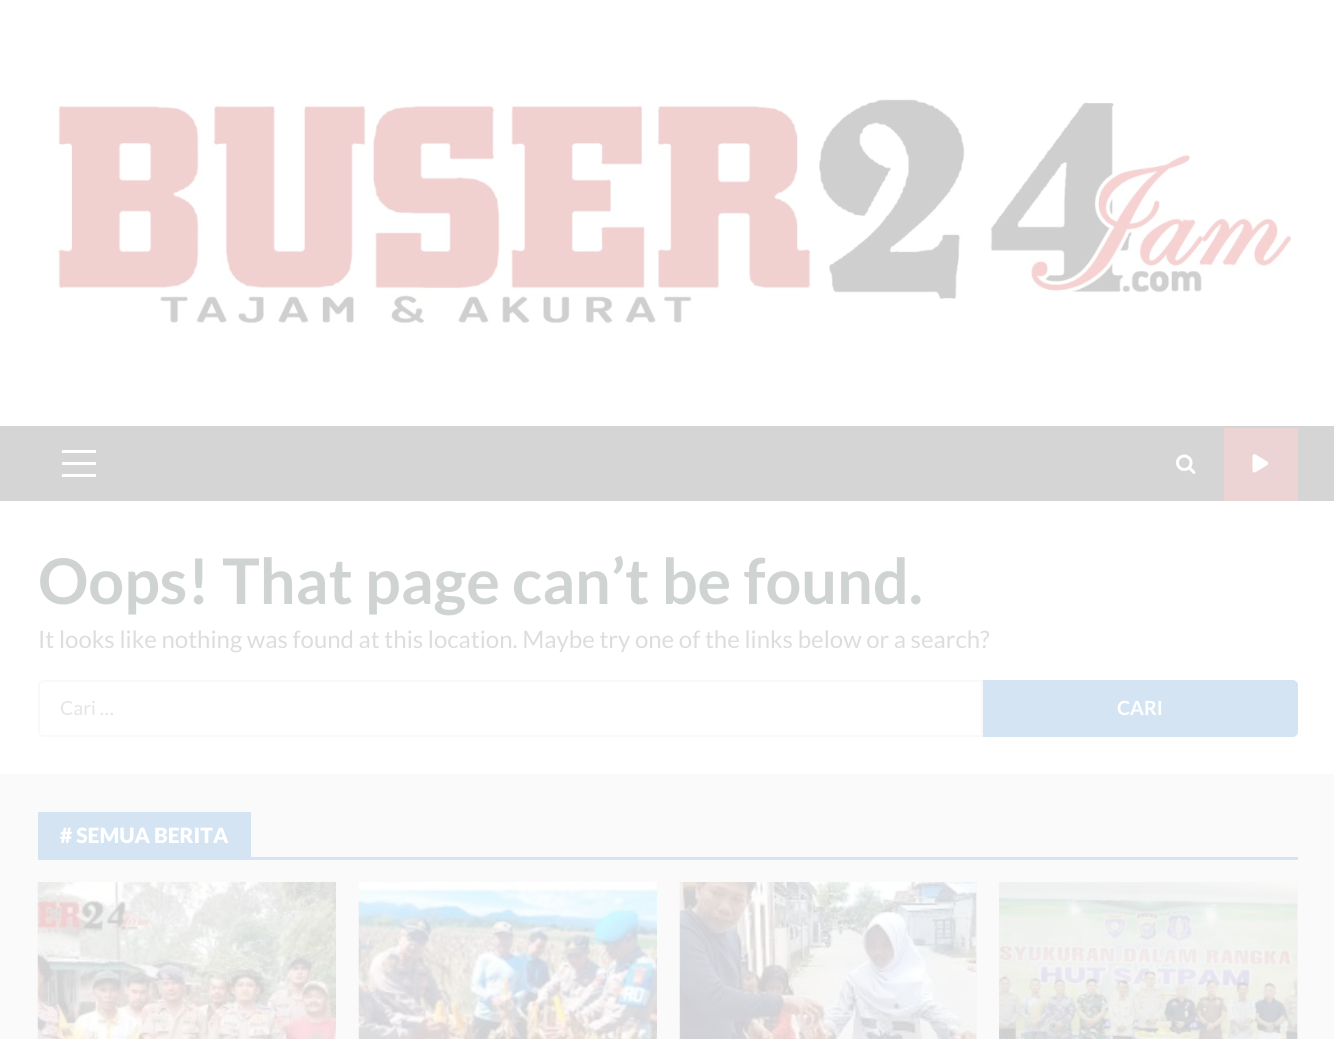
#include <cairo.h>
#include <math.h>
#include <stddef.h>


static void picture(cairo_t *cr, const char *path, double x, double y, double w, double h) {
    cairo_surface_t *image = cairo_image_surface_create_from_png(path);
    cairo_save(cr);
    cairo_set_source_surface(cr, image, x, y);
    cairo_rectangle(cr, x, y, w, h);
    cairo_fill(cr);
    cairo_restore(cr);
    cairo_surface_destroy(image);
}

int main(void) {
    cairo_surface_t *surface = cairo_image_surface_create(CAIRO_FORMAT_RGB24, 1334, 1039);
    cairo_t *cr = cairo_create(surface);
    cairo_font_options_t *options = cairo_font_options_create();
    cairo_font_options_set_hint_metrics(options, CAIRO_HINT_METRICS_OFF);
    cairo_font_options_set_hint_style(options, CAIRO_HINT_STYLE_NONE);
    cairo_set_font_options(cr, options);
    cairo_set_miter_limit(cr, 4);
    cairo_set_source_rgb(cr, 1, 1, 1);
    cairo_paint(cr);
    picture(cr, "img1.png", 50, 96, 1248, 230);
    cairo_set_source_rgb(cr, 0.835, 0.835, 0.835);
    cairo_rectangle(cr, 0, 426, 1334, 75);
    cairo_fill(cr);
    cairo_set_source_rgb(cr, 1, 1, 1);
    cairo_rectangle(cr, 62, 462, 34, 3);
    cairo_fill(cr);
    cairo_rectangle(cr, 62, 450, 34, 3);
    cairo_fill(cr);
    cairo_rectangle(cr, 62, 474, 34, 3);
    cairo_fill(cr);
    picture(cr, "img2.png", 1176, 454, 20, 20);
    cairo_set_source_rgb(cr, 0.929, 0.831, 0.831);
    cairo_rectangle(cr, 1224, 428, 74, 73);
    cairo_fill(cr);
    picture(cr, "img3.png", 1252, 454, 17, 19);
    cairo_select_font_face(cr, "Lato", CAIRO_FONT_SLANT_NORMAL, CAIRO_FONT_WEIGHT_BOLD);
    cairo_set_font_size(cr, 63);
    cairo_set_source_rgb(cr, 0.812, 0.831, 0.824);
    cairo_move_to(cr, 38, 604);
    cairo_show_text(cr, "Oops! That page can’t be found.");
    cairo_select_font_face(cr, "Lato", CAIRO_FONT_SLANT_NORMAL, CAIRO_FONT_WEIGHT_NORMAL);
    cairo_set_font_size(cr, 24);
    cairo_set_source_rgb(cr, 0.867, 0.867, 0.867);
    cairo_move_to(cr, 38, 648);
    cairo_show_text(cr, "It looks like nothing was found at this location. Maybe try one of the links below or a search?");
    cairo_new_path(cr);
    cairo_move_to(cr, 43, 681);
    cairo_line_to(cr, 982, 681);
    cairo_line_to(cr, 982, 736);
    cairo_line_to(cr, 43, 736);
    cairo_curve_to(cr, 41, 736, 39, 734, 39, 732);
    cairo_line_to(cr, 39, 685);
    cairo_curve_to(cr, 39, 683, 41, 681, 43, 681);
    cairo_close_path(cr);
    cairo_set_source_rgb(cr, 0.973, 0.973, 0.973);
    cairo_stroke(cr);
    cairo_set_font_size(cr, 19.5);
    cairo_set_source_rgb(cr, 0.898, 0.898, 0.898);
    cairo_move_to(cr, 60, 715);
    cairo_show_text(cr, "Cari …");
    cairo_set_source_rgb(cr, 0.831, 0.894, 0.953);
    cairo_new_path(cr);
    cairo_move_to(cr, 984, 681);
    cairo_line_to(cr, 1293, 681);
    cairo_curve_to(cr, 1295, 681, 1297, 683, 1297, 685);
    cairo_line_to(cr, 1297, 732);
    cairo_curve_to(cr, 1297, 734, 1295, 736, 1293, 736);
    cairo_line_to(cr, 984, 736);
    cairo_close_path(cr);
    cairo_fill_preserve(cr);
    cairo_stroke(cr);
    cairo_select_font_face(cr, "Lato", CAIRO_FONT_SLANT_NORMAL, CAIRO_FONT_WEIGHT_BOLD);
    cairo_set_source_rgb(cr, 1, 1, 1);
    cairo_move_to(cr, 1117, 715);
    cairo_show_text(cr, "CARI");
    cairo_set_source_rgb(cr, 0.98, 0.98, 0.98);
    cairo_rectangle(cr, 0, 774, 1334, 265);
    cairo_fill(cr);
    cairo_set_source_rgb(cr, 0.831, 0.894, 0.953);
    cairo_rectangle(cr, 38, 857, 1260, 3);
    cairo_fill(cr);
    cairo_rectangle(cr, 38, 812, 213, 45);
    cairo_fill(cr);
    cairo_select_font_face(cr, "Lato Black", CAIRO_FONT_SLANT_NORMAL, CAIRO_FONT_WEIGHT_NORMAL);
    cairo_set_font_size(cr, 21);
    cairo_set_source_rgb(cr, 1, 1, 1);
    cairo_move_to(cr, 60, 843);
    cairo_show_text(cr, "# SEMUA BERITA");
    picture(cr, "img4.png", 37, 882, 299, 157);
    picture(cr, "img5.png", 358, 882, 299, 157);
    cairo_set_source_rgb(cr, 0.961, 0.961, 0.961);
    cairo_rectangle(cr, 976, 882, 1, 157);
    cairo_fill(cr);
    picture(cr, "img6.png", 679, 882, 298, 157);
    cairo_rectangle(cr, 1297, 882, 1, 157);
    cairo_fill(cr);
    picture(cr, "img7.png", 999, 882, 299, 157);
    cairo_surface_write_to_png(surface, "page.png");
    cairo_font_options_destroy(options);
    cairo_destroy(cr);
    cairo_surface_destroy(surface);
    return 0;
}
